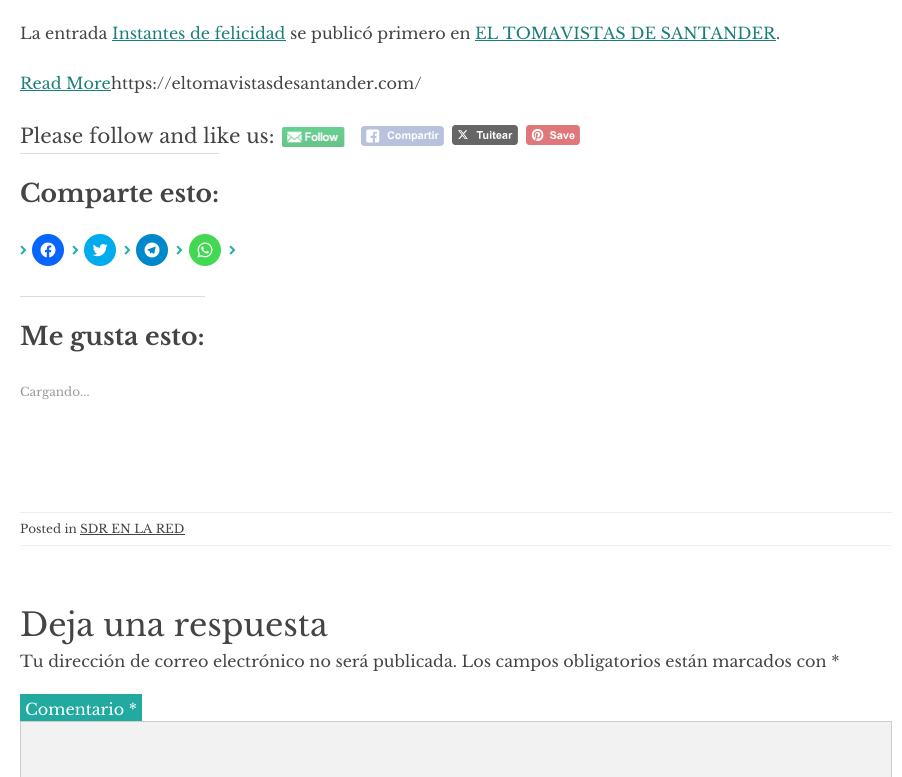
#include <cairo.h>
#include <math.h>
#include <stddef.h>


static void picture(cairo_t *cr, const char *path, double x, double y, double w, double h) {
    cairo_surface_t *image = cairo_image_surface_create_from_png(path);
    cairo_save(cr);
    cairo_set_source_surface(cr, image, x, y);
    cairo_rectangle(cr, x, y, w, h);
    cairo_fill(cr);
    cairo_restore(cr);
    cairo_surface_destroy(image);
}

int main(void) {
    cairo_surface_t *surface = cairo_image_surface_create(CAIRO_FORMAT_RGB24, 902, 777);
    cairo_t *cr = cairo_create(surface);
    cairo_font_options_t *options = cairo_font_options_create();
    cairo_font_options_set_hint_metrics(options, CAIRO_HINT_METRICS_OFF);
    cairo_font_options_set_hint_style(options, CAIRO_HINT_STYLE_NONE);
    cairo_set_font_options(cr, options);
    cairo_set_miter_limit(cr, 4);
    cairo_set_source_rgb(cr, 1, 1, 1);
    cairo_paint(cr);
    cairo_select_font_face(cr, "Libre Baskerville", CAIRO_FONT_SLANT_NORMAL, CAIRO_FONT_WEIGHT_NORMAL);
    cairo_set_font_size(cr, 16);
    cairo_set_source_rgb(cr, 0.267, 0.267, 0.267);
    cairo_move_to(cr, 20, 39);
    cairo_show_text(cr, "La entrada");
    cairo_set_source_rgb(cr, 0.098, 0.498, 0.475);
    cairo_move_to(cr, 112, 39);
    cairo_show_text(cr, "Instantes de felicidad");
    cairo_rectangle(cr, 112, 40, 174, 1);
    cairo_fill(cr);
    cairo_set_source_rgb(cr, 0.267, 0.267, 0.267);
    cairo_move_to(cr, 290, 39);
    cairo_show_text(cr, "se publicó primero en");
    cairo_set_source_rgb(cr, 0.098, 0.498, 0.475);
    cairo_move_to(cr, 475, 39);
    cairo_show_text(cr, "EL TOMAVISTAS DE SANTANDER");
    cairo_rectangle(cr, 475, 40, 301, 1);
    cairo_fill(cr);
    cairo_set_source_rgb(cr, 0.267, 0.267, 0.267);
    cairo_move_to(cr, 776, 39);
    cairo_show_text(cr, ".");
    cairo_set_source_rgb(cr, 0.098, 0.498, 0.475);
    cairo_move_to(cr, 20, 89);
    cairo_show_text(cr, "Read More");
    cairo_rectangle(cr, 20, 90, 91, 1);
    cairo_fill(cr);
    cairo_set_source_rgb(cr, 0.267, 0.267, 0.267);
    cairo_move_to(cr, 111, 89);
    cairo_show_text(cr, "https://eltomavistasdesantander.com/");
    cairo_set_font_size(cr, 20);
    cairo_move_to(cr, 20, 143);
    cairo_show_text(cr, "Please follow and like us:");
    picture(cr, "img1.png", 282, 127, 63, 20);
    picture(cr, "img2.png", 361, 126, 83, 20);
    picture(cr, "img3.png", 452, 125, 66, 20);
    picture(cr, "img4.png", 526, 125, 54, 20);
    cairo_set_source_rgb(cr, 0.863, 0.863, 0.871);
    cairo_rectangle(cr, 20, 153, 199, 1);
    cairo_fill(cr);
    cairo_select_font_face(cr, "Libre Baskerville", CAIRO_FONT_SLANT_NORMAL, CAIRO_FONT_WEIGHT_BOLD);
    cairo_set_font_size(cr, 25);
    cairo_set_source_rgb(cr, 0.267, 0.267, 0.267);
    cairo_move_to(cr, 20, 202);
    cairo_show_text(cr, "Comparte esto:");
    picture(cr, "img5.png", 20, 245, 7, 10);
    cairo_set_source_rgb(cr, 0.031, 0.4, 1);
    cairo_arc(cr, 48, 250, 16, 0, 2 * M_PI);
    cairo_fill(cr);
    picture(cr, "img6.png", 40, 242, 16, 16);
    picture(cr, "img5.png", 72, 245, 7, 10);
    cairo_set_source_rgb(cr, 0, 0.675, 0.933);
    cairo_arc(cr, 100, 250, 16, 0, 2 * M_PI);
    cairo_fill(cr);
    picture(cr, "img7.png", 92, 244, 16, 13);
    picture(cr, "img5.png", 124, 245, 7, 10);
    cairo_set_source_rgb(cr, 0, 0.533, 0.8);
    cairo_arc(cr, 152, 250, 16, 0, 2 * M_PI);
    cairo_fill(cr);
    picture(cr, "img8.png", 144, 242, 16, 16);
    picture(cr, "img5.png", 176, 245, 7, 10);
    cairo_set_source_rgb(cr, 0.263, 0.847, 0.329);
    cairo_arc(cr, 205, 250, 16, 0, 2 * M_PI);
    cairo_fill(cr);
    picture(cr, "img9.png", 197, 242, 16, 16);
    picture(cr, "img5.png", 229, 245, 7, 10);
    cairo_set_source_rgb(cr, 0.863, 0.863, 0.871);
    cairo_rectangle(cr, 20, 296, 185, 1);
    cairo_fill(cr);
    cairo_set_source_rgb(cr, 0.267, 0.267, 0.267);
    cairo_move_to(cr, 20, 345);
    cairo_show_text(cr, "Me gusta esto:");
    cairo_select_font_face(cr, "Libre Baskerville", CAIRO_FONT_SLANT_NORMAL, CAIRO_FONT_WEIGHT_NORMAL);
    cairo_set_font_size(cr, 12);
    cairo_set_source_rgb(cr, 0.6, 0.6, 0.6);
    cairo_move_to(cr, 20, 396);
    cairo_show_text(cr, "Cargando...");
    cairo_set_source_rgb(cr, 0.933, 0.933, 0.933);
    cairo_rectangle(cr, 20, 512, 872, 1);
    cairo_fill(cr);
    cairo_set_source_rgb(cr, 0.941, 0.941, 0.941);
    cairo_rectangle(cr, 20, 545, 872, 1);
    cairo_fill(cr);
    cairo_set_source_rgb(cr, 0.267, 0.267, 0.267);
    cairo_move_to(cr, 20, 533);
    cairo_show_text(cr, "Posted in");
    cairo_move_to(cr, 80, 533);
    cairo_show_text(cr, "SDR EN LA RED");
    cairo_rectangle(cr, 80, 534, 105, 1);
    cairo_fill(cr);
    cairo_set_font_size(cr, 32);
    cairo_move_to(cr, 20, 636);
    cairo_show_text(cr, "Deja una respuesta");
    cairo_set_font_size(cr, 16);
    cairo_move_to(cr, 20, 667);
    cairo_show_text(cr, "Tu dirección de correo electrónico no será publicada. Los campos obligatorios están marcados con *");
    cairo_set_source_rgb(cr, 0.133, 0.667, 0.631);
    cairo_rectangle(cr, 20, 694, 122, 27);
    cairo_fill(cr);
    cairo_set_source_rgb(cr, 1, 1, 1);
    cairo_move_to(cr, 25, 715);
    cairo_show_text(cr, "Comentario *");
    cairo_set_source_rgb(cr, 0.949, 0.949, 0.949);
    cairo_rectangle(cr, 20.5, 721.5, 871, 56);
    cairo_fill_preserve(cr);
    cairo_set_source_rgb(cr, 0.8, 0.8, 0.8);
    cairo_set_line_width(cr, 1);
    cairo_stroke(cr);
    cairo_surface_write_to_png(surface, "page.png");
    cairo_font_options_destroy(options);
    cairo_destroy(cr);
    cairo_surface_destroy(surface);
    return 0;
}
